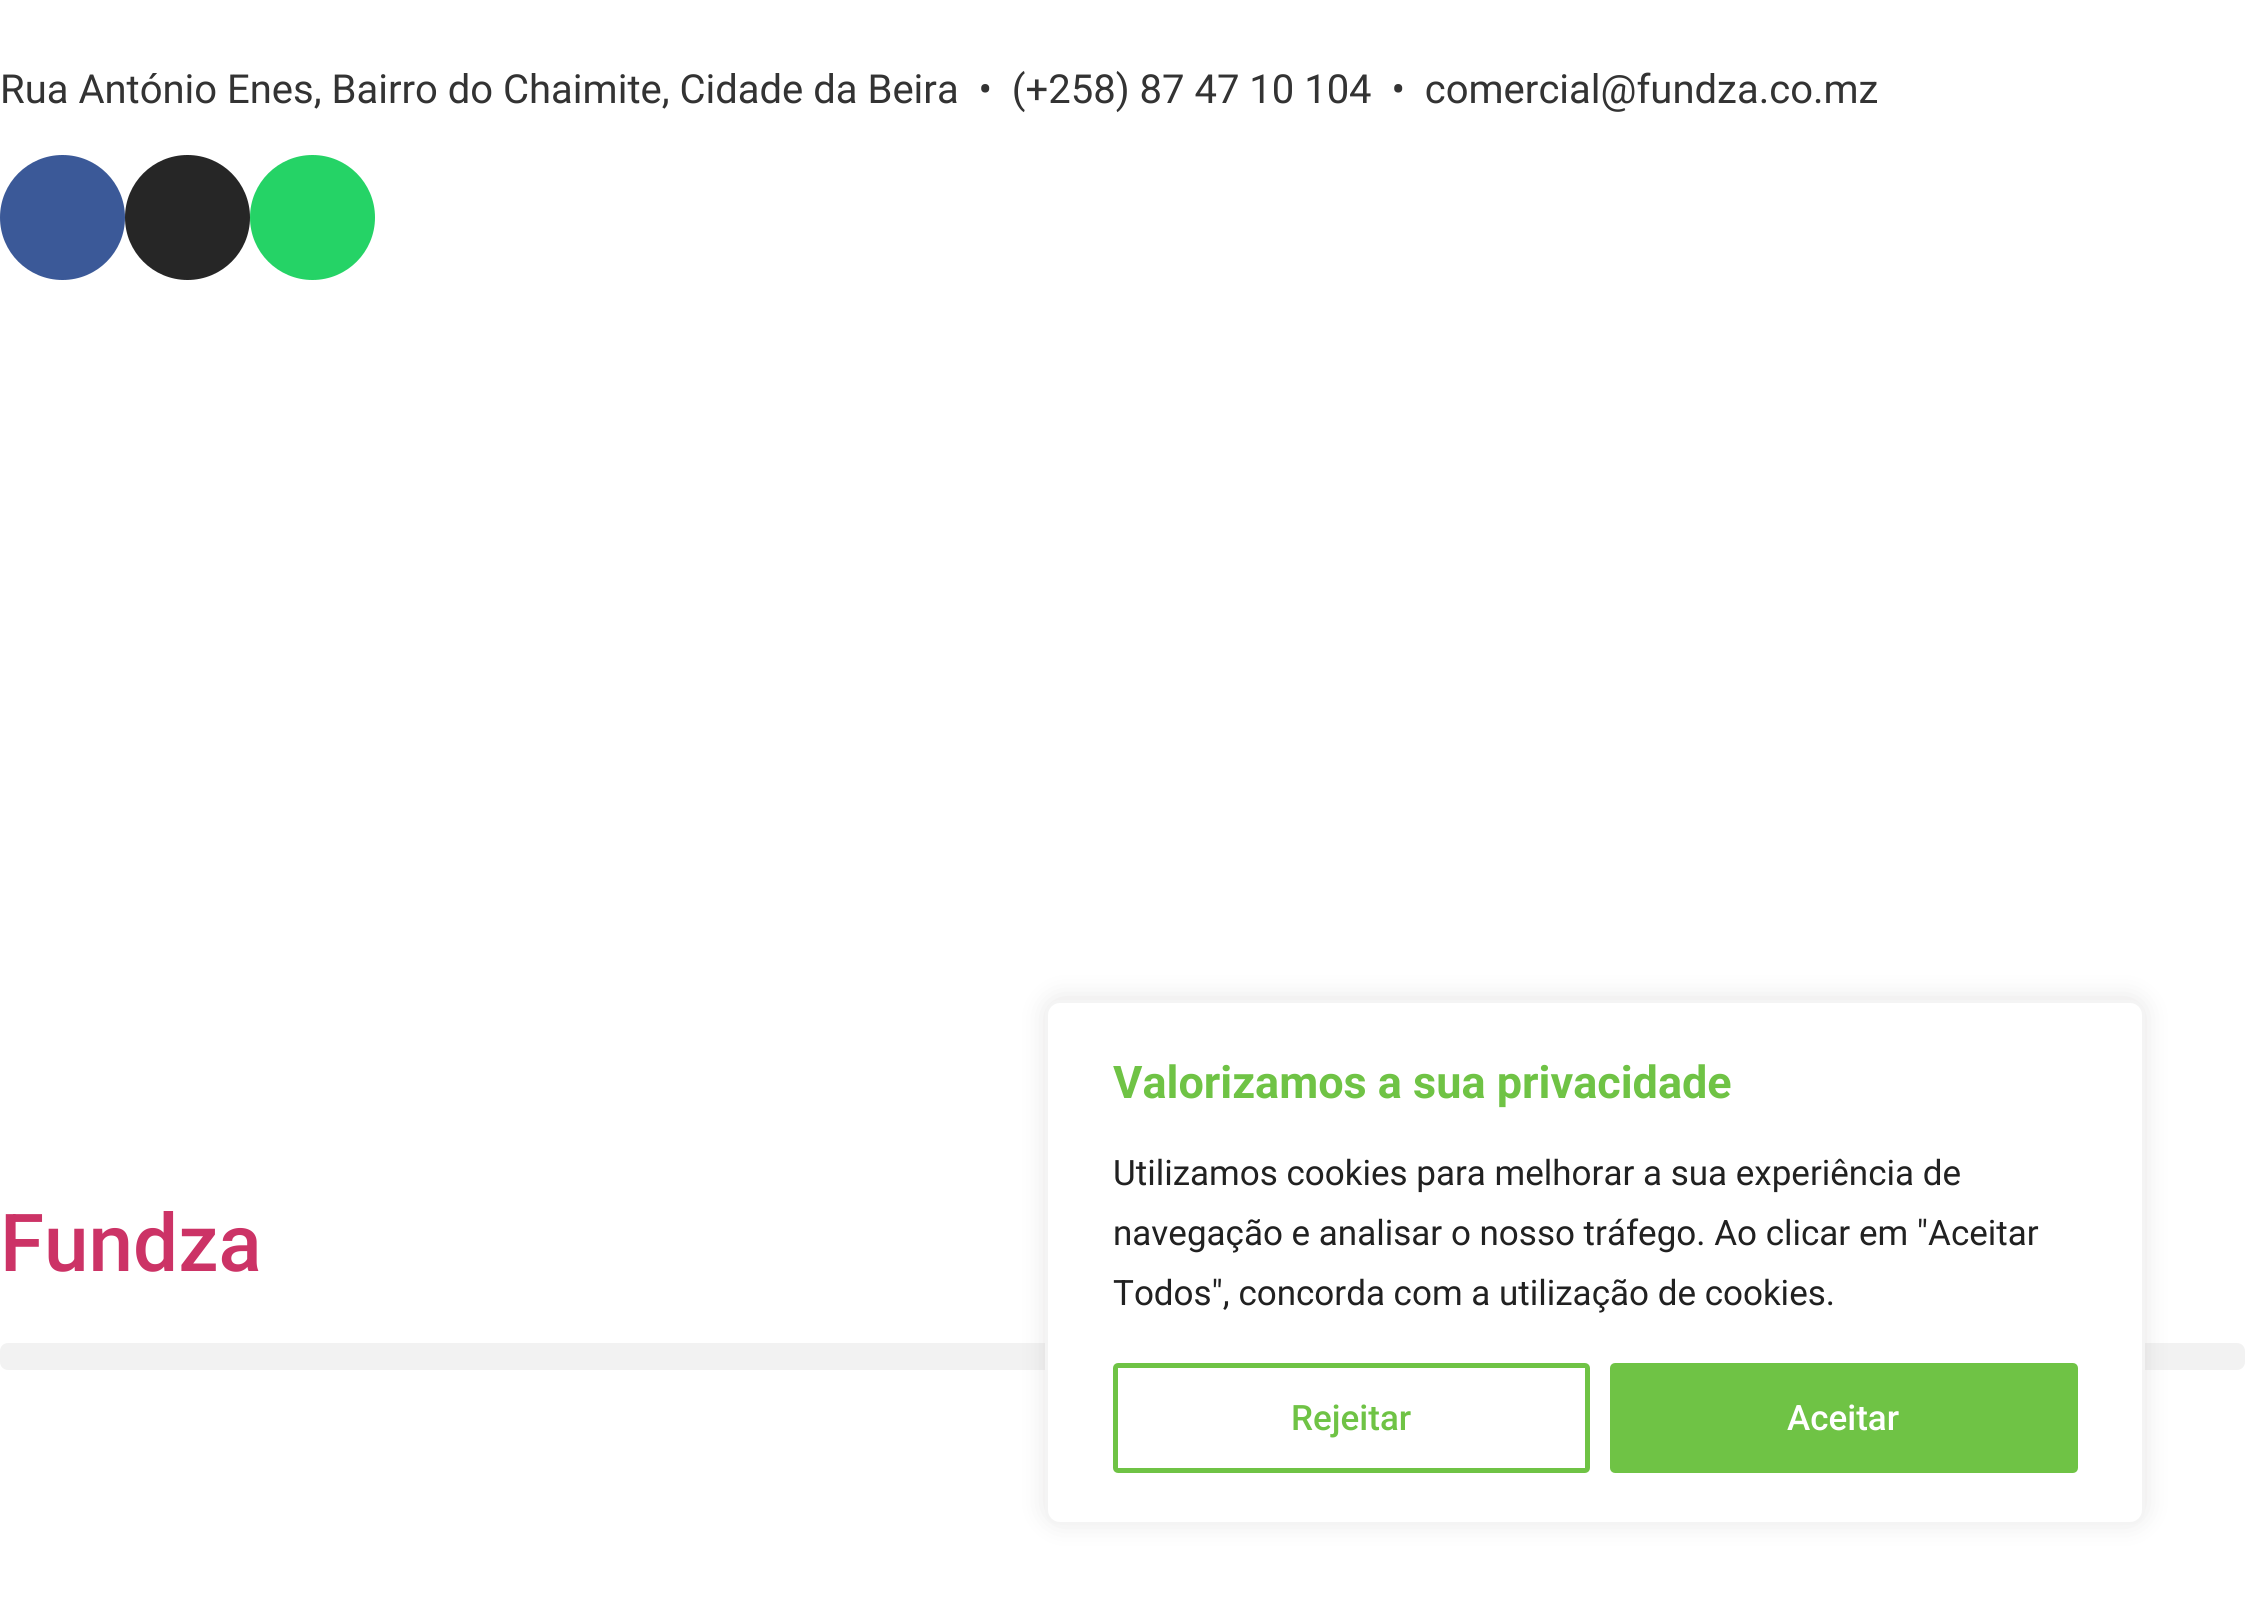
#include <cairo.h>
#include <math.h>
#include <stddef.h>


static void round_rect(cairo_t *cr, double x, double y, double w, double h, double r) {
    cairo_new_sub_path(cr);
    cairo_arc(cr, x + w - r, y + h - r, r, 0, M_PI / 2);
    cairo_arc(cr, x + r, y + h - r, r, M_PI / 2, M_PI);
    cairo_arc(cr, x + r, y + r, r, M_PI, 1.5 * M_PI);
    cairo_arc(cr, x + w - r, y + r, r, 1.5 * M_PI, 2 * M_PI);
    cairo_close_path(cr);
}

static void shadow(cairo_t *cr, double x, double y, double w, double h, double r, double blur, double alpha) {
    cairo_push_group_with_content(cr, CAIRO_CONTENT_ALPHA);
    cairo_set_operator(cr, CAIRO_OPERATOR_SOURCE);
    for (int i = 15; i >= -15 && fmin(w, h) + blur * i / 3 > 0; i -= 2) {
        double e = blur * i / 6;
        cairo_set_source_rgba(cr, 0, 0, 0, alpha * erfc((i - 1) / 8.5) / 2);
        round_rect(cr, x - e, y - e, w + 2 * e, h + 2 * e, fmax(0, fmin(r + e + blur * .6, fmin(w, h) / 2 + e)));
        cairo_fill(cr);
    }
    cairo_pattern_t *soft = cairo_pop_group(cr);
    cairo_mask(cr, soft);
    cairo_pattern_destroy(soft);
}

int main(void) {
    cairo_surface_t *surface = cairo_image_surface_create(CAIRO_FORMAT_RGB24, 2245, 1623);
    cairo_t *cr = cairo_create(surface);
    cairo_font_options_t *options = cairo_font_options_create();
    cairo_font_options_set_hint_metrics(options, CAIRO_HINT_METRICS_OFF);
    cairo_font_options_set_hint_style(options, CAIRO_HINT_STYLE_NONE);
    cairo_set_font_options(cr, options);
    cairo_set_miter_limit(cr, 4);
    cairo_set_source_rgb(cr, 1, 1, 1);
    cairo_paint(cr);
    cairo_select_font_face(cr, "Roboto", CAIRO_FONT_SLANT_NORMAL, CAIRO_FONT_WEIGHT_NORMAL);
    cairo_set_font_size(cr, 40);
    cairo_set_source_rgb(cr, 0.2, 0.2, 0.2);
    cairo_move_to(cr, 0, 103);
    cairo_show_text(cr, "Rua António Enes, Bairro do Chaimite, Cidade da Beira  •  (+258) 87 47 10 104  •  comercial@fundza.co.mz");
    cairo_set_source_rgb(cr, 0.231, 0.349, 0.596);
    cairo_new_path(cr);
    cairo_arc(cr, 62.5, 217.5, 62.5, 0, 2 * M_PI);
    cairo_fill(cr);
    cairo_set_source_rgb(cr, 0.149, 0.149, 0.149);
    cairo_arc(cr, 187.5, 217.5, 62.5, 0, 2 * M_PI);
    cairo_fill(cr);
    cairo_set_source_rgb(cr, 0.145, 0.827, 0.4);
    cairo_arc(cr, 312.5, 217.5, 62.5, 0, 2 * M_PI);
    cairo_fill(cr);
    cairo_select_font_face(cr, "Roboto Medium", CAIRO_FONT_SLANT_NORMAL, CAIRO_FONT_WEIGHT_NORMAL);
    cairo_set_font_size(cr, 80);
    cairo_set_source_rgb(cr, 0.8, 0.2, 0.4);
    cairo_move_to(cr, 0, 1271);
    cairo_show_text(cr, "Fundza");
    cairo_set_source_rgb(cr, 0.949, 0.949, 0.949);
    round_rect(cr, 0, 1343, 2245, 27, 8);
    cairo_fill(cr);
    cairo_set_source_rgb(cr, 0.675, 0.671, 0.671);
    shadow(cr, 1045, 998, 1100, 525, 15, 12.5, 0.3);
    cairo_set_source_rgb(cr, 1, 1, 1);
    round_rect(cr, 1046.5, 1001.5, 1097, 522, 13.5);
    cairo_fill_preserve(cr);
    cairo_set_source_rgb(cr, 0.957, 0.957, 0.957);
    cairo_set_line_width(cr, 3);
    cairo_stroke(cr);
    cairo_select_font_face(cr, "Roboto", CAIRO_FONT_SLANT_NORMAL, CAIRO_FONT_WEIGHT_BOLD);
    cairo_set_font_size(cr, 45);
    cairo_set_source_rgb(cr, 0.435, 0.765, 0.271);
    cairo_move_to(cr, 1113, 1098);
    cairo_show_text(cr, "Valorizamos a sua privacidade");
    cairo_select_font_face(cr, "Roboto", CAIRO_FONT_SLANT_NORMAL, CAIRO_FONT_WEIGHT_NORMAL);
    cairo_set_font_size(cr, 35);
    cairo_set_source_rgb(cr, 0.129, 0.129, 0.129);
    cairo_move_to(cr, 1113, 1185);
    cairo_show_text(cr, "Utilizamos cookies para melhorar a sua experiência de");
    cairo_move_to(cr, 1113, 1245);
    cairo_show_text(cr, "navegação e analisar o nosso tráfego. Ao clicar em \"Aceitar");
    cairo_move_to(cr, 1113, 1305);
    cairo_show_text(cr, "Todos\", concorda com a utilização de cookies.");
    round_rect(cr, 1115.5, 1365.5, 472, 105, 2.5);
    cairo_set_source_rgb(cr, 0.435, 0.765, 0.271);
    cairo_set_line_width(cr, 5);
    cairo_stroke(cr);
    cairo_select_font_face(cr, "Roboto Medium", CAIRO_FONT_SLANT_NORMAL, CAIRO_FONT_WEIGHT_NORMAL);
    cairo_move_to(cr, 1291, 1430);
    cairo_show_text(cr, "Rejeitar");
    round_rect(cr, 1612.5, 1365.5, 463, 105, 2.5);
    cairo_fill_preserve(cr);
    cairo_stroke(cr);
    cairo_set_source_rgb(cr, 1, 1, 1);
    cairo_move_to(cr, 1787, 1430);
    cairo_show_text(cr, "Aceitar");
    cairo_surface_write_to_png(surface, "page.png");
    cairo_font_options_destroy(options);
    cairo_destroy(cr);
    cairo_surface_destroy(surface);
    return 0;
}
